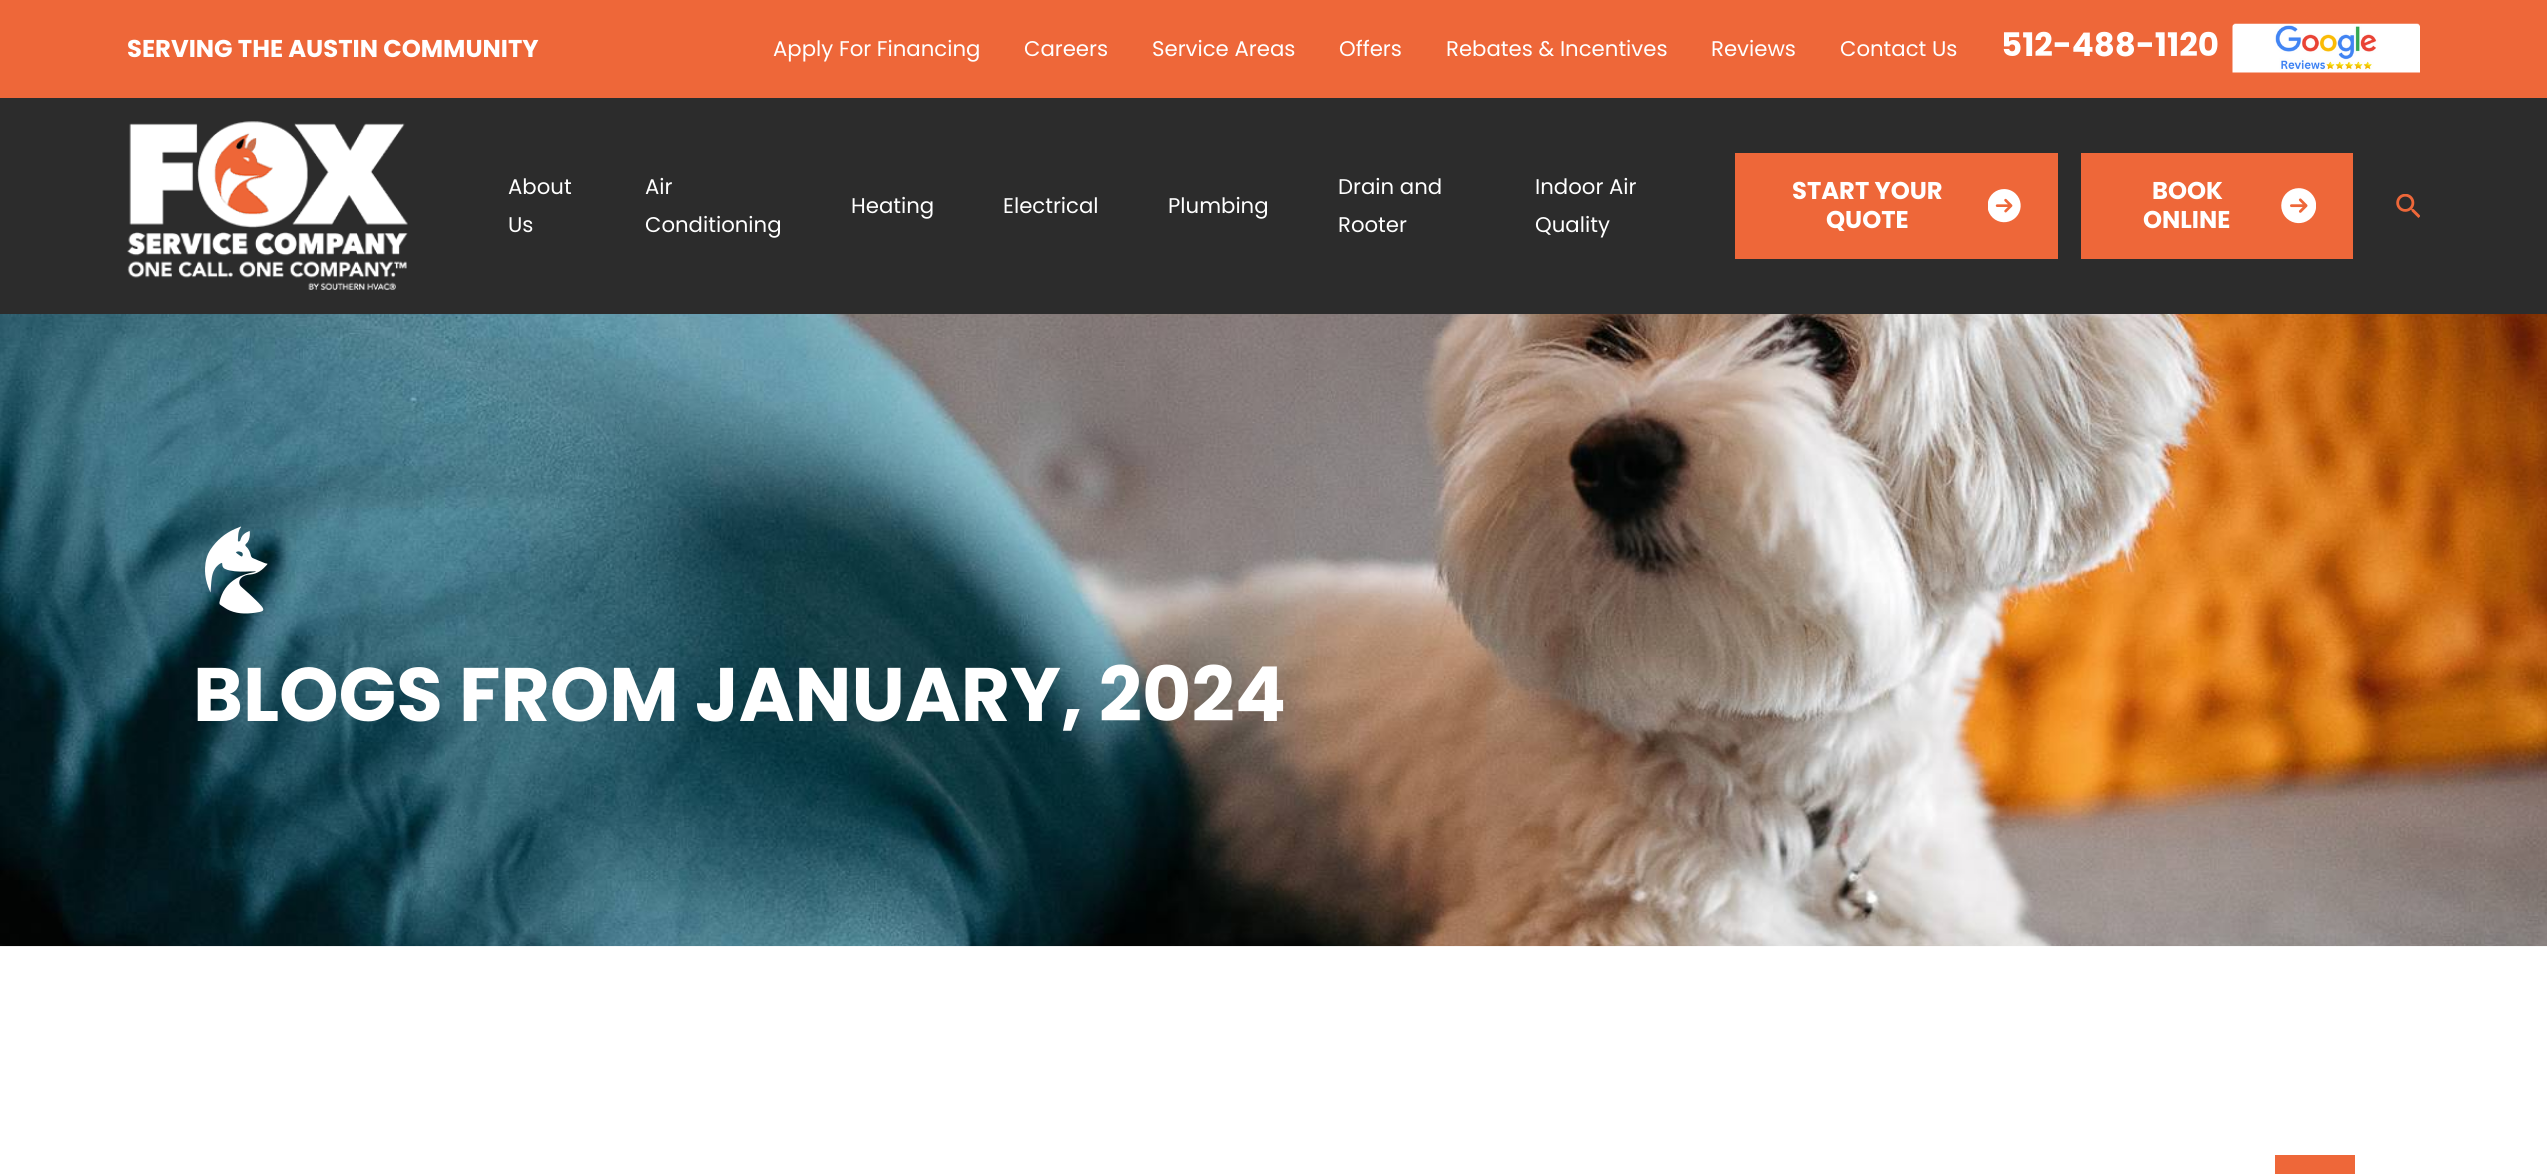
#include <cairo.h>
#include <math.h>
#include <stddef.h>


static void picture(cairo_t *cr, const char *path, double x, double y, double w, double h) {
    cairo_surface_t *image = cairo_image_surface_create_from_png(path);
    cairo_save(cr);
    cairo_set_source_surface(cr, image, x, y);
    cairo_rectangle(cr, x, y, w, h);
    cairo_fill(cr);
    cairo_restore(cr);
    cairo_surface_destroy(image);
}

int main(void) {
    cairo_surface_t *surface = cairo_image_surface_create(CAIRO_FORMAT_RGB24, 2547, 1174);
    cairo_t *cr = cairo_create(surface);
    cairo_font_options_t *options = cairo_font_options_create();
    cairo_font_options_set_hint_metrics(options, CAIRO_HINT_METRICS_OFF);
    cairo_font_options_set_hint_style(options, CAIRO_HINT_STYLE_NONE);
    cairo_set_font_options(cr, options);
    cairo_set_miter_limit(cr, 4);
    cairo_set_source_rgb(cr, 1, 1, 1);
    cairo_paint(cr);
    cairo_set_source_rgb(cr, 0.173, 0.173, 0.173);
    cairo_rectangle(cr, 0, 98, 2547, 216);
    cairo_fill(cr);
    cairo_set_source_rgb(cr, 0.933, 0.404, 0.224);
    cairo_rectangle(cr, 0, 0, 2547, 98);
    cairo_fill(cr);
    cairo_select_font_face(cr, "Poppins", CAIRO_FONT_SLANT_NORMAL, CAIRO_FONT_WEIGHT_BOLD);
    cairo_set_font_size(cr, 24.3);
    cairo_set_source_rgb(cr, 1, 1, 1);
    cairo_move_to(cr, 127, 57);
    cairo_show_text(cr, "SERVING THE AUSTIN COMMUNITY");
    cairo_select_font_face(cr, "Poppins", CAIRO_FONT_SLANT_NORMAL, CAIRO_FONT_WEIGHT_NORMAL);
    cairo_set_font_size(cr, 21.25);
    cairo_move_to(cr, 773, 56);
    cairo_show_text(cr, "Apply For Financing");
    cairo_move_to(cr, 1024, 56);
    cairo_show_text(cr, "Careers");
    cairo_move_to(cr, 1152, 56);
    cairo_show_text(cr, "Service Areas");
    cairo_move_to(cr, 1339, 56);
    cairo_show_text(cr, "Offers");
    cairo_move_to(cr, 1446, 56);
    cairo_show_text(cr, "Rebates & Incentives");
    cairo_move_to(cr, 1711, 56);
    cairo_show_text(cr, "Reviews");
    cairo_move_to(cr, 1840, 56);
    cairo_show_text(cr, "Contact Us");
    cairo_select_font_face(cr, "Poppins", CAIRO_FONT_SLANT_NORMAL, CAIRO_FONT_WEIGHT_BOLD);
    cairo_set_font_size(cr, 32.5);
    cairo_move_to(cr, 2001, 56);
    cairo_show_text(cr, "512-488-1120");
    picture(cr, "img1.png", 2232, 23, 188, 50);
    picture(cr, "img2.png", 127, 121, 281, 169);
    cairo_select_font_face(cr, "Poppins", CAIRO_FONT_SLANT_NORMAL, CAIRO_FONT_WEIGHT_NORMAL);
    cairo_set_font_size(cr, 21.25);
    cairo_move_to(cr, 508, 194);
    cairo_show_text(cr, "About");
    cairo_move_to(cr, 508, 232);
    cairo_show_text(cr, "Us");
    cairo_move_to(cr, 645, 194);
    cairo_show_text(cr, "Air");
    cairo_move_to(cr, 645, 232);
    cairo_show_text(cr, "Conditioning");
    cairo_move_to(cr, 851, 213);
    cairo_show_text(cr, "Heating");
    cairo_move_to(cr, 1003, 213);
    cairo_show_text(cr, "Electrical");
    cairo_move_to(cr, 1168, 213);
    cairo_show_text(cr, "Plumbing");
    cairo_move_to(cr, 1338, 194);
    cairo_show_text(cr, "Drain and");
    cairo_move_to(cr, 1338, 232);
    cairo_show_text(cr, "Rooter");
    cairo_move_to(cr, 1535, 194);
    cairo_show_text(cr, "Indoor Air");
    cairo_move_to(cr, 1535, 232);
    cairo_show_text(cr, "Quality");
    cairo_set_source_rgb(cr, 0.933, 0.404, 0.224);
    cairo_rectangle(cr, 1735, 153, 323, 106);
    cairo_fill(cr);
    cairo_select_font_face(cr, "Poppins", CAIRO_FONT_SLANT_NORMAL, CAIRO_FONT_WEIGHT_BOLD);
    cairo_set_font_size(cr, 24.25);
    cairo_set_source_rgb(cr, 1, 1, 1);
    cairo_move_to(cr, 1792, 199);
    cairo_show_text(cr, "START YOUR");
    picture(cr, "img3.png", 1988, 189, 33, 34);
    cairo_move_to(cr, 1826, 228);
    cairo_show_text(cr, "QUOTE");
    cairo_set_source_rgb(cr, 0.933, 0.404, 0.224);
    cairo_rectangle(cr, 2081, 153, 272, 106);
    cairo_fill(cr);
    cairo_set_source_rgb(cr, 1, 1, 1);
    cairo_move_to(cr, 2152, 199);
    cairo_show_text(cr, "BOOK");
    picture(cr, "img4.png", 2281, 188, 35, 36);
    cairo_move_to(cr, 2143, 228);
    cairo_show_text(cr, "ONLINE");
    picture(cr, "img5.png", 2396, 194, 24, 24);
    picture(cr, "img6.png", 0, 314, 2547, 633);
    picture(cr, "img7.png", 205, 526, 63, 88);
    cairo_set_font_size(cr, 75.75);
    cairo_move_to(cr, 193, 721);
    cairo_show_text(cr, "BLOGS FROM JANUARY, 2024");
    cairo_set_source_rgb(cr, 0.933, 0.404, 0.224);
    cairo_rectangle(cr, 2275, 1155, 80, 19);
    cairo_fill(cr);
    cairo_surface_write_to_png(surface, "page.png");
    cairo_font_options_destroy(options);
    cairo_destroy(cr);
    cairo_surface_destroy(surface);
    return 0;
}
